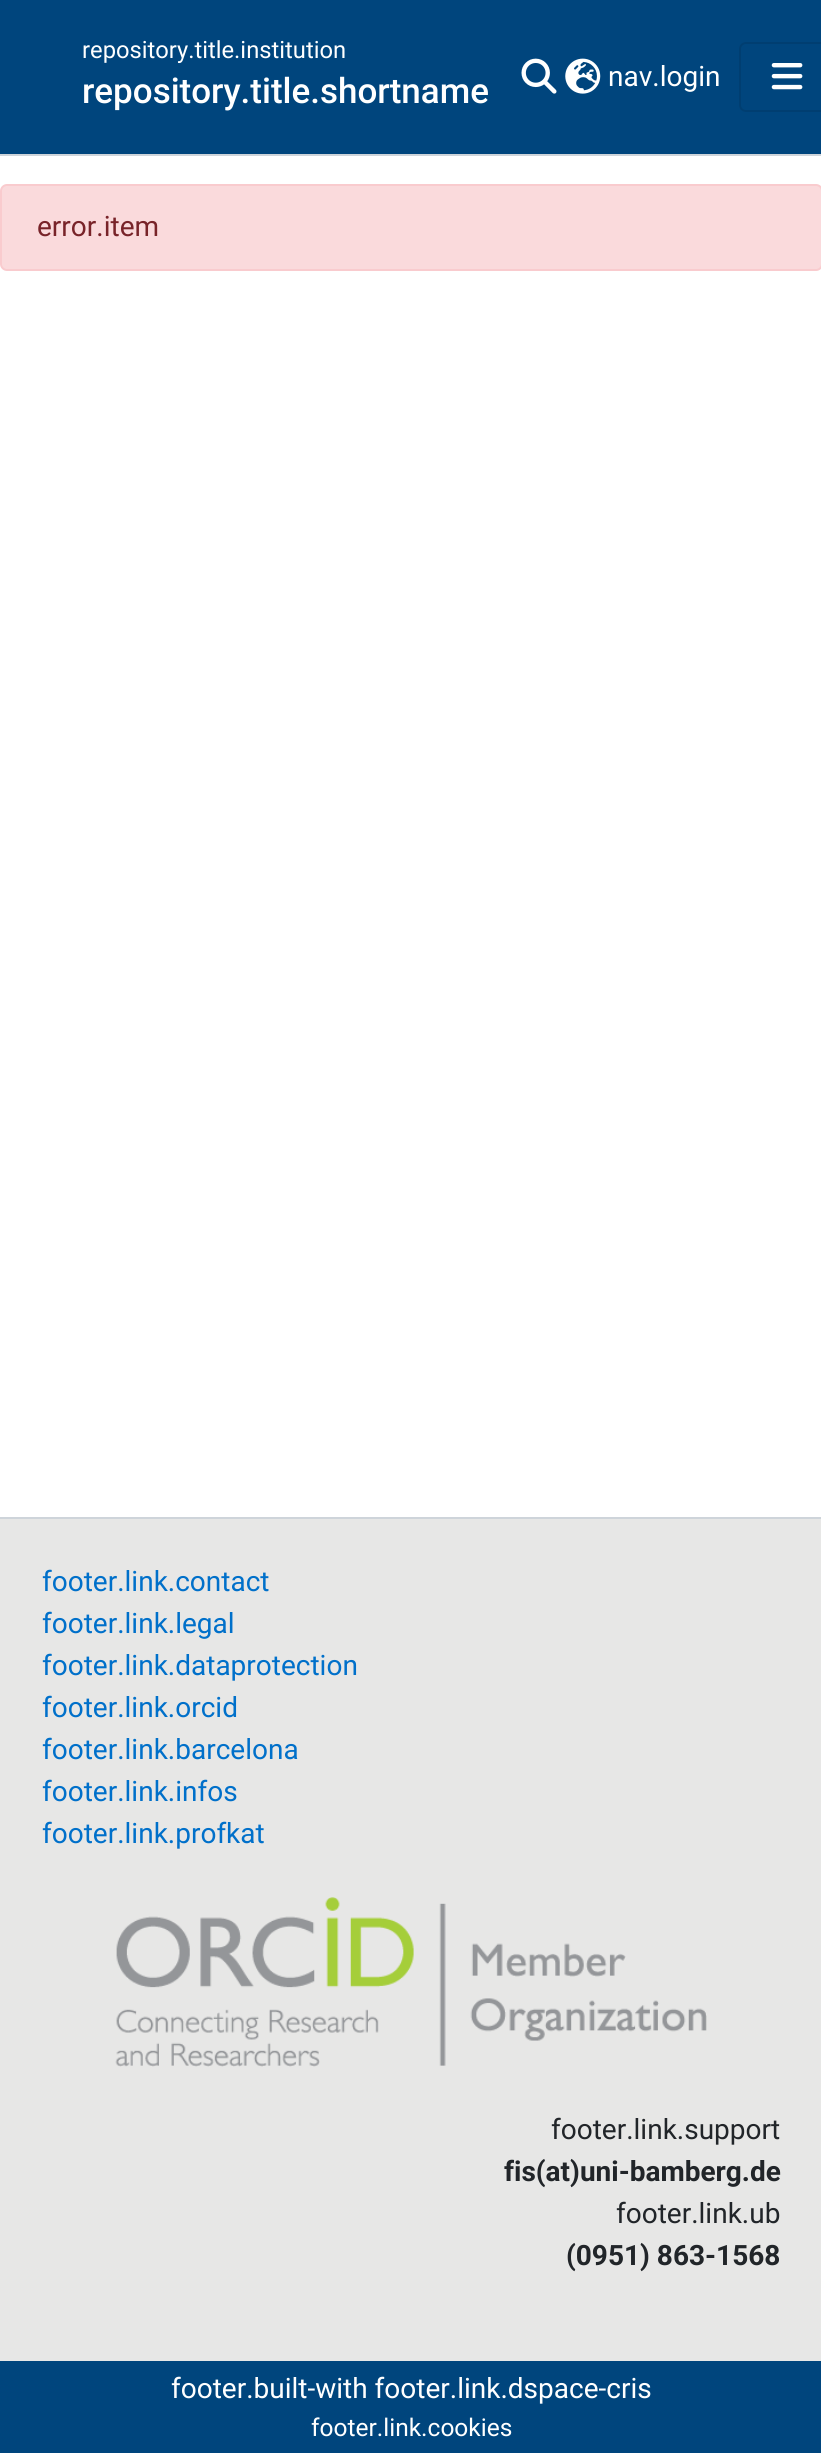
#include <cairo.h>
#include <math.h>
#include <stddef.h>


static void round_rect(cairo_t *cr, double x, double y, double w, double h, double r) {
    cairo_new_sub_path(cr);
    cairo_arc(cr, x + w - r, y + h - r, r, 0, M_PI / 2);
    cairo_arc(cr, x + r, y + h - r, r, M_PI / 2, M_PI);
    cairo_arc(cr, x + r, y + r, r, M_PI, 1.5 * M_PI);
    cairo_arc(cr, x + w - r, y + r, r, 1.5 * M_PI, 2 * M_PI);
    cairo_close_path(cr);
}

static void picture(cairo_t *cr, const char *path, double x, double y, double w, double h) {
    cairo_surface_t *image = cairo_image_surface_create_from_png(path);
    cairo_save(cr);
    cairo_set_source_surface(cr, image, x, y);
    cairo_rectangle(cr, x, y, w, h);
    cairo_fill(cr);
    cairo_restore(cr);
    cairo_surface_destroy(image);
}

int main(void) {
    cairo_surface_t *surface = cairo_image_surface_create(CAIRO_FORMAT_RGB24, 821, 2453);
    cairo_t *cr = cairo_create(surface);
    cairo_font_options_t *options = cairo_font_options_create();
    cairo_font_options_set_hint_metrics(options, CAIRO_HINT_METRICS_OFF);
    cairo_font_options_set_hint_style(options, CAIRO_HINT_STYLE_NONE);
    cairo_set_font_options(cr, options);
    cairo_set_miter_limit(cr, 4);
    cairo_set_source_rgb(cr, 1, 1, 1);
    cairo_paint(cr);
    cairo_set_source_rgb(cr, 0, 0.271, 0.49);
    cairo_rectangle(cr, 0, 0, 821, 154);
    cairo_fill(cr);
    cairo_select_font_face(cr, "Roboto", CAIRO_FONT_SLANT_NORMAL, CAIRO_FONT_WEIGHT_NORMAL);
    cairo_set_font_size(cr, 23.75);
    cairo_set_source_rgb(cr, 1, 1, 1);
    cairo_move_to(cr, 82, 58);
    cairo_show_text(cr, "repository.title.institution");
    cairo_select_font_face(cr, "Roboto Medium", CAIRO_FONT_SLANT_NORMAL, CAIRO_FONT_WEIGHT_NORMAL);
    cairo_set_font_size(cr, 35);
    cairo_move_to(cr, 82, 103);
    cairo_show_text(cr, "repository.title.shortname");
    picture(cr, "img1.png", 521, 58, 36, 36);
    picture(cr, "img2.png", 565, 58, 36, 36);
    cairo_select_font_face(cr, "Roboto", CAIRO_FONT_SLANT_NORMAL, CAIRO_FONT_WEIGHT_NORMAL);
    cairo_set_font_size(cr, 28);
    cairo_move_to(cr, 608, 86);
    cairo_show_text(cr, "nav.login");
    round_rect(cr, 740, 43, 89, 68, 6);
    cairo_set_source_rgb(cr, 0, 0.243, 0.443);
    cairo_stroke(cr);
    picture(cr, "img3.png", 771, 63, 32, 27);
    cairo_set_source_rgb(cr, 0.808, 0.831, 0.855);
    cairo_rectangle(cr, 0, 154, 821, 2);
    cairo_fill(cr);
    cairo_set_source_rgb(cr, 0.98, 0.855, 0.863);
    round_rect(cr, 1, 185, 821, 85, 6);
    cairo_fill_preserve(cr);
    cairo_set_source_rgb(cr, 0.973, 0.796, 0.808);
    cairo_stroke(cr);
    cairo_set_source_rgb(cr, 0.471, 0.137, 0.161);
    cairo_move_to(cr, 37, 236);
    cairo_show_text(cr, "error.item");
    cairo_set_source_rgb(cr, 0.906, 0.906, 0.902);
    cairo_rectangle(cr, 0, 1519, 821, 842);
    cairo_fill(cr);
    cairo_set_source_rgb(cr, 0.808, 0.831, 0.855);
    cairo_rectangle(cr, 0, 1517, 821, 2);
    cairo_fill(cr);
    cairo_set_source_rgb(cr, 0, 0.439, 0.792);
    cairo_move_to(cr, 42, 1591);
    cairo_show_text(cr, "footer.link.contact");
    cairo_move_to(cr, 42, 1633);
    cairo_show_text(cr, "footer.link.legal");
    cairo_move_to(cr, 42, 1675);
    cairo_show_text(cr, "footer.link.dataprotection");
    cairo_move_to(cr, 42, 1717);
    cairo_show_text(cr, "footer.link.orcid");
    cairo_move_to(cr, 42, 1759);
    cairo_show_text(cr, "footer.link.barcelona");
    cairo_move_to(cr, 42, 1801);
    cairo_show_text(cr, "footer.link.infos");
    cairo_move_to(cr, 42, 1843);
    cairo_show_text(cr, "footer.link.profkat");
    picture(cr, "img4.png", 115, 1897, 592, 170);
    cairo_set_source_rgb(cr, 0.129, 0.145, 0.161);
    cairo_move_to(cr, 551, 2139);
    cairo_show_text(cr, "footer.link.support");
    cairo_select_font_face(cr, "Roboto", CAIRO_FONT_SLANT_NORMAL, CAIRO_FONT_WEIGHT_BOLD);
    cairo_move_to(cr, 504, 2181);
    cairo_show_text(cr, "fis(at)uni-bamberg.de");
    cairo_select_font_face(cr, "Roboto", CAIRO_FONT_SLANT_NORMAL, CAIRO_FONT_WEIGHT_NORMAL);
    cairo_move_to(cr, 616, 2223);
    cairo_show_text(cr, "footer.link.ub");
    cairo_select_font_face(cr, "Roboto", CAIRO_FONT_SLANT_NORMAL, CAIRO_FONT_WEIGHT_BOLD);
    cairo_move_to(cr, 566, 2265);
    cairo_show_text(cr, "(0951) 863-1568");
    cairo_set_source_rgb(cr, 0, 0.271, 0.49);
    cairo_rectangle(cr, 0, 2361, 821, 92);
    cairo_fill(cr);
    cairo_select_font_face(cr, "Roboto", CAIRO_FONT_SLANT_NORMAL, CAIRO_FONT_WEIGHT_NORMAL);
    cairo_set_source_rgb(cr, 1, 1, 1);
    cairo_move_to(cr, 171, 2398);
    cairo_show_text(cr, "footer.built-with footer.link.dspace-cris");
    cairo_set_font_size(cr, 24.5);
    cairo_move_to(cr, 311, 2436);
    cairo_show_text(cr, "footer.link.cookies");
    cairo_surface_write_to_png(surface, "page.png");
    cairo_font_options_destroy(options);
    cairo_destroy(cr);
    cairo_surface_destroy(surface);
    return 0;
}
